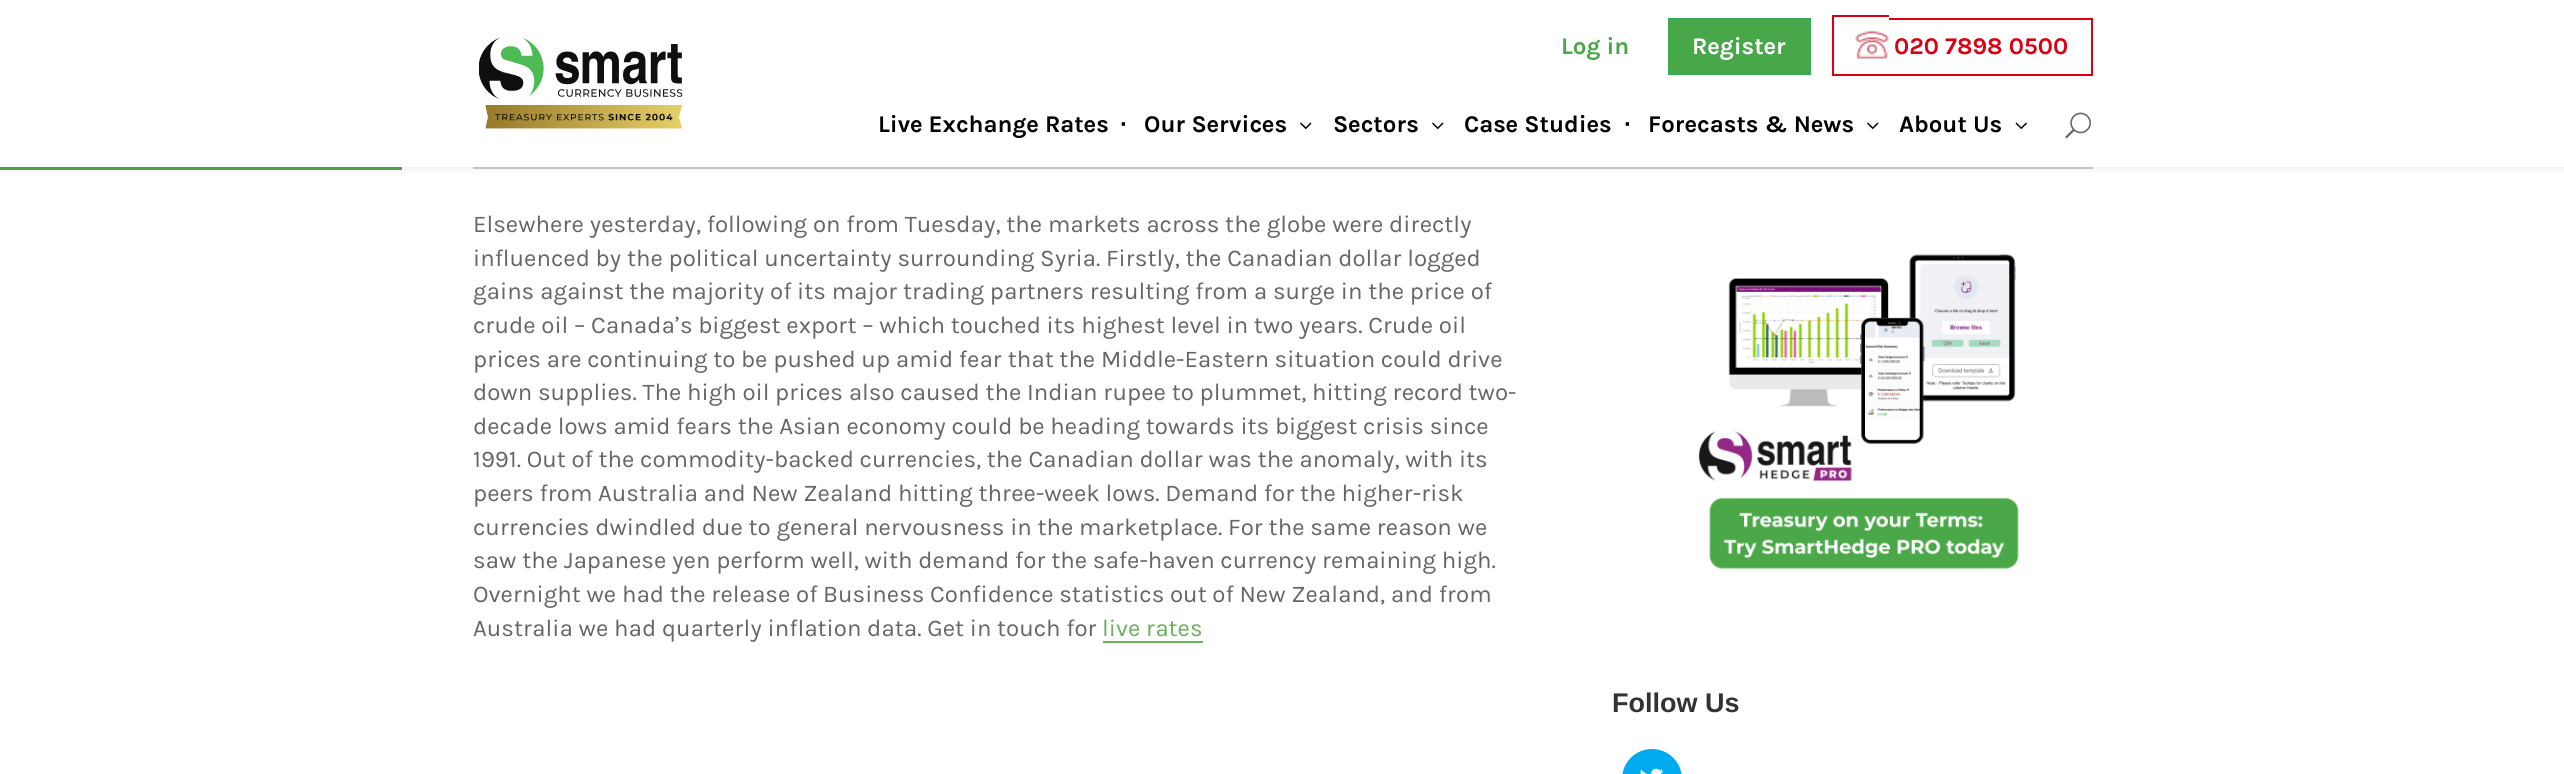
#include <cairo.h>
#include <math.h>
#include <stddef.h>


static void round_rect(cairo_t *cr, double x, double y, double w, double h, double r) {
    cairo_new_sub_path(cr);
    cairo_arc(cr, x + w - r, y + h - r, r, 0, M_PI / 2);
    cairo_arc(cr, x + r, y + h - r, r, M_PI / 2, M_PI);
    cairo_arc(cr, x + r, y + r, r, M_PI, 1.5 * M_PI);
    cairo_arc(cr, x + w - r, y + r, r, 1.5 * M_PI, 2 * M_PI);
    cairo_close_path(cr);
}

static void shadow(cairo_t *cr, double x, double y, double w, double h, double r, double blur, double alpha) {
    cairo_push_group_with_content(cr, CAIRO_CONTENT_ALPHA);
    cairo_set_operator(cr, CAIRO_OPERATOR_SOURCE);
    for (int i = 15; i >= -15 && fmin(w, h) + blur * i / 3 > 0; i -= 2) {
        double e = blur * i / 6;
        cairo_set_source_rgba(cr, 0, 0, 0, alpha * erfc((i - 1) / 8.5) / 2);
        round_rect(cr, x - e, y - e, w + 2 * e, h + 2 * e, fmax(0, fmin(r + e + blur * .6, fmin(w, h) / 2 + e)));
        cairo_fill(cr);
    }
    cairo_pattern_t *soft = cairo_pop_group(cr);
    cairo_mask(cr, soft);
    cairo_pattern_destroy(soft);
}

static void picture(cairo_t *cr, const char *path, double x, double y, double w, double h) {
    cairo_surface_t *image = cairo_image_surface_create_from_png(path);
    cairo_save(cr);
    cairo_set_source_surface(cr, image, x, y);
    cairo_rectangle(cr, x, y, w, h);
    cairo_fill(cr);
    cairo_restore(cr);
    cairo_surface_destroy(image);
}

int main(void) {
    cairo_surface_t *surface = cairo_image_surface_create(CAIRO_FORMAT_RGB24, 2564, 774);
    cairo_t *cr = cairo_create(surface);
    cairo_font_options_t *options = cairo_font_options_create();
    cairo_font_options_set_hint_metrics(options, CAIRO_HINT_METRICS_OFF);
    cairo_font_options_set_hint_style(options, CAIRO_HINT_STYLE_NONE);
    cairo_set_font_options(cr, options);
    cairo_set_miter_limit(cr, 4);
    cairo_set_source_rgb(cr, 1, 1, 1);
    cairo_paint(cr);
    cairo_set_source_rgb(cr, 0.8, 0.8, 0.8);
    cairo_rectangle(cr, 473, 167, 1620, 2);
    cairo_fill(cr);
    cairo_set_source_rgb(cr, 0, 0, 0);
    shadow(cr, 0, 0, 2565, 167, 0, 5, 0.1);
    cairo_set_source_rgb(cr, 1, 1, 1);
    cairo_rectangle(cr, 0, 0, 2564, 167);
    cairo_fill(cr);
    picture(cr, "img1.png", 479, 38, 204, 91);
    cairo_select_font_face(cr, "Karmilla", CAIRO_FONT_SLANT_NORMAL, CAIRO_FONT_WEIGHT_BOLD);
    cairo_set_font_size(cr, 24);
    cairo_set_source_rgb(cr, 0.282, 0.655, 0.282);
    cairo_move_to(cr, 1561, 54);
    cairo_show_text(cr, "Log in");
    cairo_rectangle(cr, 1669, 19, 141, 55);
    cairo_fill_preserve(cr);
    cairo_set_source_rgb(cr, 0.212, 0.675, 0.337);
    cairo_stroke(cr);
    cairo_set_source_rgb(cr, 1, 1, 1);
    cairo_move_to(cr, 1692, 54);
    cairo_show_text(cr, "Register");
    picture(cr, "img2.png", 1855, 31, 34, 28);
    cairo_set_source_rgb(cr, 0.855, 0, 0.078);
    cairo_move_to(cr, 1894, 54);
    cairo_show_text(cr, "020 7898 0500");
    cairo_rectangle(cr, 1832, 15, 57, 2);
    cairo_fill(cr);
    cairo_rectangle(cr, 1832, 74, 57, 2);
    cairo_fill(cr);
    cairo_rectangle(cr, 1832, 15, 2, 60);
    cairo_fill(cr);
    cairo_rectangle(cr, 1889, 18, 204, 2);
    cairo_fill(cr);
    cairo_rectangle(cr, 2091, 18, 2, 57);
    cairo_fill(cr);
    cairo_rectangle(cr, 1889, 74, 204, 2);
    cairo_fill(cr);
    cairo_set_source_rgb(cr, 0, 0, 0);
    cairo_move_to(cr, 878, 132);
    cairo_show_text(cr, "Live Exchange Rates");
    cairo_select_font_face(cr, "Liberation Sans", CAIRO_FONT_SLANT_NORMAL, CAIRO_FONT_WEIGHT_BOLD);
    cairo_move_to(cr, 1120, 132);
    cairo_show_text(cr, "·");
    cairo_select_font_face(cr, "Karmilla", CAIRO_FONT_SLANT_NORMAL, CAIRO_FONT_WEIGHT_BOLD);
    cairo_move_to(cr, 1144, 132);
    cairo_show_text(cr, "Our Services");
    picture(cr, "img3.png", 1300, 122, 12, 7);
    cairo_move_to(cr, 1333, 132);
    cairo_show_text(cr, "Sectors");
    picture(cr, "img3.png", 1432, 122, 12, 7);
    cairo_move_to(cr, 1464, 132);
    cairo_show_text(cr, "Case Studies");
    cairo_select_font_face(cr, "Liberation Sans", CAIRO_FONT_SLANT_NORMAL, CAIRO_FONT_WEIGHT_BOLD);
    cairo_move_to(cr, 1624, 132);
    cairo_show_text(cr, "·");
    cairo_select_font_face(cr, "Karmilla", CAIRO_FONT_SLANT_NORMAL, CAIRO_FONT_WEIGHT_BOLD);
    cairo_move_to(cr, 1648, 132);
    cairo_show_text(cr, "Forecasts & News");
    picture(cr, "img3.png", 1867, 122, 12, 7);
    cairo_move_to(cr, 1899, 132);
    cairo_show_text(cr, "About Us");
    picture(cr, "img4.png", 2015, 122, 12, 7);
    picture(cr, "img5.png", 2065, 112, 26, 27);
    cairo_set_source_rgb(cr, 0.282, 0.655, 0.282);
    cairo_rectangle(cr, 0, 167, 402, 3);
    cairo_fill(cr);
    cairo_select_font_face(cr, "Karmilla", CAIRO_FONT_SLANT_NORMAL, CAIRO_FONT_WEIGHT_NORMAL);
    cairo_set_source_rgb(cr, 0.4, 0.4, 0.4);
    cairo_move_to(cr, 473, 232);
    cairo_show_text(cr, "Elsewhere yesterday, following on from Tuesday, the markets across the globe were directly");
    cairo_move_to(cr, 473, 266);
    cairo_show_text(cr, "influenced by the political uncertainty surrounding Syria. Firstly, the Canadian dollar logged");
    cairo_move_to(cr, 473, 299);
    cairo_show_text(cr, "gains against the majority of its major trading partners resulting from a surge in the price of");
    cairo_move_to(cr, 473, 333);
    cairo_show_text(cr, "crude oil – Canada’s biggest export – which touched its highest level in two years. Crude oil");
    cairo_move_to(cr, 473, 367);
    cairo_show_text(cr, "prices are continuing to be pushed up amid fear that the Middle-Eastern situation could drive");
    cairo_move_to(cr, 473, 400);
    cairo_show_text(cr, "down supplies. The high oil prices also caused the Indian rupee to plummet, hitting record two-");
    cairo_move_to(cr, 473, 434);
    cairo_show_text(cr, "decade lows amid fears the Asian economy could be heading towards its biggest crisis since");
    cairo_move_to(cr, 473, 467);
    cairo_show_text(cr, "1991. Out of the commodity-backed currencies, the Canadian dollar was the anomaly, with its");
    cairo_move_to(cr, 473, 501);
    cairo_show_text(cr, "peers from Australia and New Zealand hitting three-week lows. Demand for the higher-risk");
    cairo_move_to(cr, 473, 535);
    cairo_show_text(cr, "currencies dwindled due to general nervousness in the marketplace. For the same reason we");
    cairo_move_to(cr, 473, 568);
    cairo_show_text(cr, "saw the Japanese yen perform well, with demand for the safe-haven currency remaining high.");
    cairo_move_to(cr, 473, 602);
    cairo_show_text(cr, "Overnight we had the release of Business Confidence statistics out of New Zealand, and from");
    cairo_move_to(cr, 473, 636);
    cairo_show_text(cr, "Australia we had quarterly inflation data. Get in touch for");
    cairo_set_source_rgb(cr, 0.416, 0.686, 0.353);
    cairo_move_to(cr, 1102, 636);
    cairo_show_text(cr, "live rates");
    cairo_rectangle(cr, 1103, 641, 100, 2);
    cairo_fill(cr);
    picture(cr, "img6.png", 1698, 254, 321, 315);
    cairo_select_font_face(cr, "Liberation Sans", CAIRO_FONT_SLANT_NORMAL, CAIRO_FONT_WEIGHT_BOLD);
    cairo_set_font_size(cr, 27);
    cairo_set_source_rgb(cr, 0.2, 0.2, 0.2);
    cairo_move_to(cr, 1612, 712);
    cairo_show_text(cr, "Follow Us");
    cairo_set_source_rgb(cr, 0, 0.671, 0.941);
    round_rect(cr, 1622, 749, 60, 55, 30);
    cairo_fill(cr);
    picture(cr, "img7.png", 1640, 768, 24, 6);
    cairo_surface_write_to_png(surface, "page.png");
    cairo_font_options_destroy(options);
    cairo_destroy(cr);
    cairo_surface_destroy(surface);
    return 0;
}
